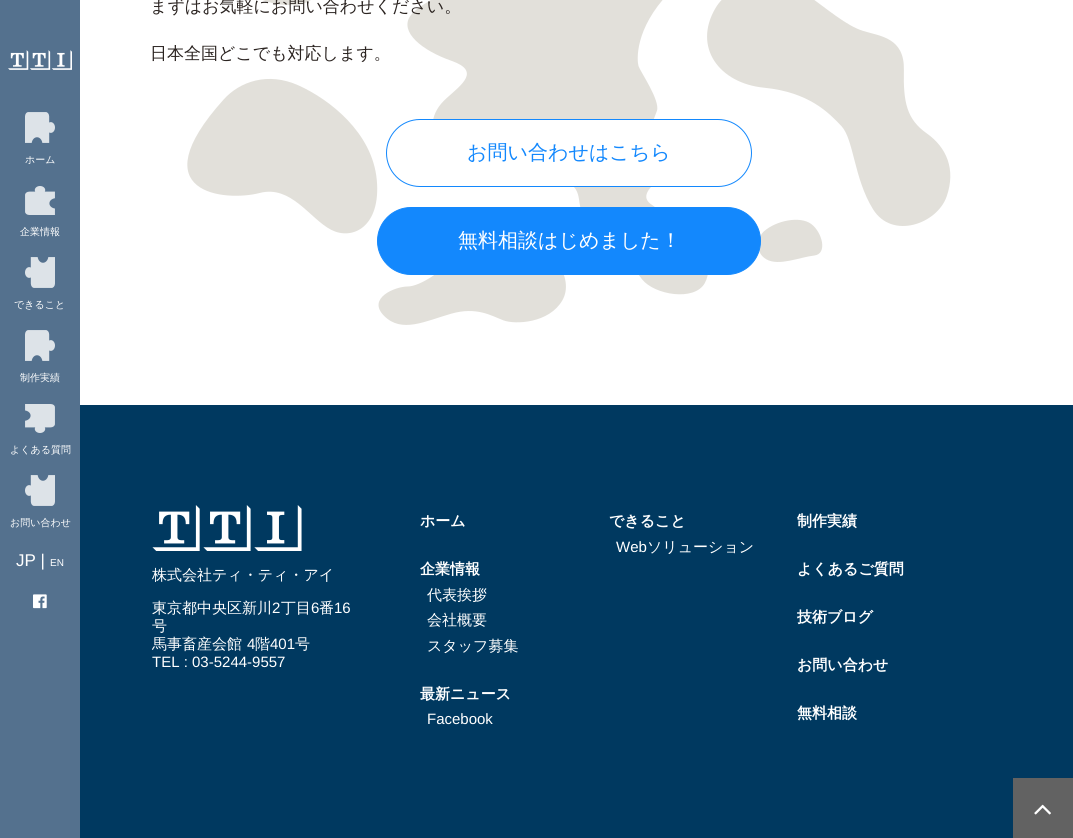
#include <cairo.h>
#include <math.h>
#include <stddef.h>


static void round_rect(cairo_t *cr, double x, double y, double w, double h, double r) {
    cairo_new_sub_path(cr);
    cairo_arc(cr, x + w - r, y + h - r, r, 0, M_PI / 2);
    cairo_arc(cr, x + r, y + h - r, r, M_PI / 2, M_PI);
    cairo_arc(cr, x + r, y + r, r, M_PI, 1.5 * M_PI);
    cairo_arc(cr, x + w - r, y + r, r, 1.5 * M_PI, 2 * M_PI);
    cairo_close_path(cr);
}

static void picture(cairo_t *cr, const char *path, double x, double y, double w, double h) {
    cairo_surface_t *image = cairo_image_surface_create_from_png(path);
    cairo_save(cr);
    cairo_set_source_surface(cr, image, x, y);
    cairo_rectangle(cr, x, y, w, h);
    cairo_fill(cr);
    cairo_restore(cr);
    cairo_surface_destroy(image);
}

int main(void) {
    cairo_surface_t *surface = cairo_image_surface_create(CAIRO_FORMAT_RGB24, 1073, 838);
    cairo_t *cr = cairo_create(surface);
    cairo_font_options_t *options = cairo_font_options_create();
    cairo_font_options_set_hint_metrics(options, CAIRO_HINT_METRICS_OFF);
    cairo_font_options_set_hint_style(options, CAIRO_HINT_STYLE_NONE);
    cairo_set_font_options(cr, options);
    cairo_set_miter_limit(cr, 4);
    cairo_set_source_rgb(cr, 1, 1, 1);
    cairo_paint(cr);
    picture(cr, "img1.png", 187, 0, 764, 325);
    cairo_select_font_face(cr, "WenQuanYi Zen Hei Medium", CAIRO_FONT_SLANT_NORMAL, CAIRO_FONT_WEIGHT_NORMAL);
    cairo_set_font_size(cr, 17);
    cairo_set_source_rgb(cr, 0.169, 0.141, 0.129);
    cairo_move_to(cr, 150, 12);
    cairo_show_text(cr, "まずはお気軽にお問い合わせください。");
    cairo_move_to(cr, 150, 59);
    cairo_show_text(cr, "日本全国どこでも対応します。");
    cairo_set_source_rgb(cr, 1, 1, 1);
    round_rect(cr, 386.5, 119.5, 365, 67, 33.5);
    cairo_fill_preserve(cr);
    cairo_set_source_rgb(cr, 0.075, 0.533, 0.992);
    cairo_set_line_width(cr, 1);
    cairo_stroke(cr);
    cairo_set_font_size(cr, 20);
    cairo_move_to(cr, 467, 159);
    cairo_show_text(cr, "お問い合わせはこちら");
    round_rect(cr, 377.5, 207.5, 383, 67, 33.5);
    cairo_fill_preserve(cr);
    cairo_stroke(cr);
    cairo_set_source_rgb(cr, 1, 1, 1);
    cairo_move_to(cr, 458, 247);
    cairo_show_text(cr, "無料相談はじめました！");
    cairo_set_source_rgb(cr, 0.329, 0.443, 0.557);
    cairo_rectangle(cr, 0, 0, 80, 838);
    cairo_fill(cr);
    picture(cr, "img2.png", 8, 50, 64, 20);
    picture(cr, "img3.png", 25, 112, 30, 31);
    cairo_set_font_size(cr, 10);
    cairo_set_source_rgb(cr, 1, 1, 1);
    cairo_move_to(cr, 25, 163);
    cairo_show_text(cr, "ホーム");
    picture(cr, "img4.png", 25, 186, 30, 29);
    cairo_move_to(cr, 20, 235);
    cairo_show_text(cr, "企業情報");
    picture(cr, "img5.png", 25, 257, 30, 31);
    cairo_move_to(cr, 14, 308);
    cairo_show_text(cr, "できること");
    picture(cr, "img3.png", 25, 330, 30, 31);
    cairo_move_to(cr, 20, 381);
    cairo_show_text(cr, "制作実績");
    picture(cr, "img6.png", 25, 404, 30, 29);
    cairo_move_to(cr, 10, 453);
    cairo_show_text(cr, "よくある質問");
    picture(cr, "img5.png", 25, 475, 30, 31);
    cairo_move_to(cr, 10, 526);
    cairo_show_text(cr, "お問い合わせ");
    cairo_select_font_face(cr, "Liberation Sans", CAIRO_FONT_SLANT_NORMAL, CAIRO_FONT_WEIGHT_NORMAL);
    cairo_set_font_size(cr, 17);
    cairo_move_to(cr, 16, 566);
    cairo_show_text(cr, "JP |");
    cairo_set_font_size(cr, 10);
    cairo_move_to(cr, 50, 566);
    cairo_show_text(cr, "EN");
    picture(cr, "img7.png", 33, 594, 14, 15);
    cairo_set_source_rgb(cr, 0, 0.224, 0.376);
    cairo_rectangle(cr, 80, 405, 993, 433);
    cairo_fill(cr);
    picture(cr, "img8.png", 152, 505, 150, 46);
    cairo_select_font_face(cr, "WenQuanYi Zen Hei Medium", CAIRO_FONT_SLANT_NORMAL, CAIRO_FONT_WEIGHT_NORMAL);
    cairo_set_font_size(cr, 15);
    cairo_set_source_rgb(cr, 1, 1, 1);
    cairo_move_to(cr, 152, 580);
    cairo_show_text(cr, "株式会社ティ・ティ・アイ");
    cairo_move_to(cr, 152, 613);
    cairo_show_text(cr, "東京都中央区新川");
    cairo_select_font_face(cr, "Liberation Sans", CAIRO_FONT_SLANT_NORMAL, CAIRO_FONT_WEIGHT_NORMAL);
    cairo_move_to(cr, 272, 613);
    cairo_show_text(cr, "2");
    cairo_select_font_face(cr, "WenQuanYi Zen Hei Medium", CAIRO_FONT_SLANT_NORMAL, CAIRO_FONT_WEIGHT_NORMAL);
    cairo_move_to(cr, 281, 613);
    cairo_show_text(cr, "丁目");
    cairo_select_font_face(cr, "Liberation Sans", CAIRO_FONT_SLANT_NORMAL, CAIRO_FONT_WEIGHT_NORMAL);
    cairo_move_to(cr, 311, 613);
    cairo_show_text(cr, "6");
    cairo_select_font_face(cr, "WenQuanYi Zen Hei Medium", CAIRO_FONT_SLANT_NORMAL, CAIRO_FONT_WEIGHT_NORMAL);
    cairo_move_to(cr, 319, 613);
    cairo_show_text(cr, "番");
    cairo_select_font_face(cr, "Liberation Sans", CAIRO_FONT_SLANT_NORMAL, CAIRO_FONT_WEIGHT_NORMAL);
    cairo_move_to(cr, 334, 613);
    cairo_show_text(cr, "16");
    cairo_select_font_face(cr, "WenQuanYi Zen Hei Medium", CAIRO_FONT_SLANT_NORMAL, CAIRO_FONT_WEIGHT_NORMAL);
    cairo_move_to(cr, 152, 631);
    cairo_show_text(cr, "号");
    cairo_move_to(cr, 152, 649);
    cairo_show_text(cr, "馬事畜産会館");
    cairo_select_font_face(cr, "Liberation Sans", CAIRO_FONT_SLANT_NORMAL, CAIRO_FONT_WEIGHT_NORMAL);
    cairo_move_to(cr, 247, 649);
    cairo_show_text(cr, "4");
    cairo_select_font_face(cr, "WenQuanYi Zen Hei Medium", CAIRO_FONT_SLANT_NORMAL, CAIRO_FONT_WEIGHT_NORMAL);
    cairo_move_to(cr, 255, 649);
    cairo_show_text(cr, "階");
    cairo_select_font_face(cr, "Liberation Sans", CAIRO_FONT_SLANT_NORMAL, CAIRO_FONT_WEIGHT_NORMAL);
    cairo_move_to(cr, 270, 649);
    cairo_show_text(cr, "401");
    cairo_select_font_face(cr, "WenQuanYi Zen Hei Medium", CAIRO_FONT_SLANT_NORMAL, CAIRO_FONT_WEIGHT_NORMAL);
    cairo_move_to(cr, 295, 649);
    cairo_show_text(cr, "号");
    cairo_select_font_face(cr, "Liberation Sans", CAIRO_FONT_SLANT_NORMAL, CAIRO_FONT_WEIGHT_NORMAL);
    cairo_move_to(cr, 152, 667);
    cairo_show_text(cr, "TEL : 03-5244-9557");
    cairo_select_font_face(cr, "WenQuanYi Zen Hei", CAIRO_FONT_SLANT_NORMAL, CAIRO_FONT_WEIGHT_BOLD);
    cairo_move_to(cr, 420, 526);
    cairo_show_text(cr, "ホーム");
    cairo_move_to(cr, 420, 574);
    cairo_show_text(cr, "企業情報");
    cairo_select_font_face(cr, "WenQuanYi Zen Hei Medium", CAIRO_FONT_SLANT_NORMAL, CAIRO_FONT_WEIGHT_NORMAL);
    cairo_move_to(cr, 427, 600);
    cairo_show_text(cr, "代表挨拶");
    cairo_move_to(cr, 427, 625);
    cairo_show_text(cr, "会社概要");
    cairo_move_to(cr, 427, 651);
    cairo_show_text(cr, "スタッフ募集");
    cairo_select_font_face(cr, "WenQuanYi Zen Hei", CAIRO_FONT_SLANT_NORMAL, CAIRO_FONT_WEIGHT_BOLD);
    cairo_move_to(cr, 420, 699);
    cairo_show_text(cr, "最新ニュース");
    cairo_select_font_face(cr, "Liberation Sans", CAIRO_FONT_SLANT_NORMAL, CAIRO_FONT_WEIGHT_NORMAL);
    cairo_move_to(cr, 427, 724);
    cairo_show_text(cr, "Facebook");
    cairo_select_font_face(cr, "WenQuanYi Zen Hei", CAIRO_FONT_SLANT_NORMAL, CAIRO_FONT_WEIGHT_BOLD);
    cairo_move_to(cr, 609, 526);
    cairo_show_text(cr, "できること");
    cairo_select_font_face(cr, "Liberation Sans", CAIRO_FONT_SLANT_NORMAL, CAIRO_FONT_WEIGHT_NORMAL);
    cairo_move_to(cr, 616, 552);
    cairo_show_text(cr, "Web");
    cairo_select_font_face(cr, "WenQuanYi Zen Hei Medium", CAIRO_FONT_SLANT_NORMAL, CAIRO_FONT_WEIGHT_NORMAL);
    cairo_move_to(cr, 647, 552);
    cairo_show_text(cr, "ソリューション");
    cairo_select_font_face(cr, "WenQuanYi Zen Hei", CAIRO_FONT_SLANT_NORMAL, CAIRO_FONT_WEIGHT_BOLD);
    cairo_move_to(cr, 797, 526);
    cairo_show_text(cr, "制作実績");
    cairo_move_to(cr, 797, 574);
    cairo_show_text(cr, "よくあるご質問");
    cairo_move_to(cr, 797, 622);
    cairo_show_text(cr, "技術ブログ");
    cairo_move_to(cr, 797, 670);
    cairo_show_text(cr, "お問い合わせ");
    cairo_move_to(cr, 797, 718);
    cairo_show_text(cr, "無料相談");
    cairo_set_source_rgb(cr, 0.384, 0.384, 0.384);
    cairo_rectangle(cr, 1013, 778, 60, 60);
    cairo_fill(cr);
    picture(cr, "img9.png", 1034, 804, 17, 11);
    cairo_surface_write_to_png(surface, "page.png");
    cairo_font_options_destroy(options);
    cairo_destroy(cr);
    cairo_surface_destroy(surface);
    return 0;
}
